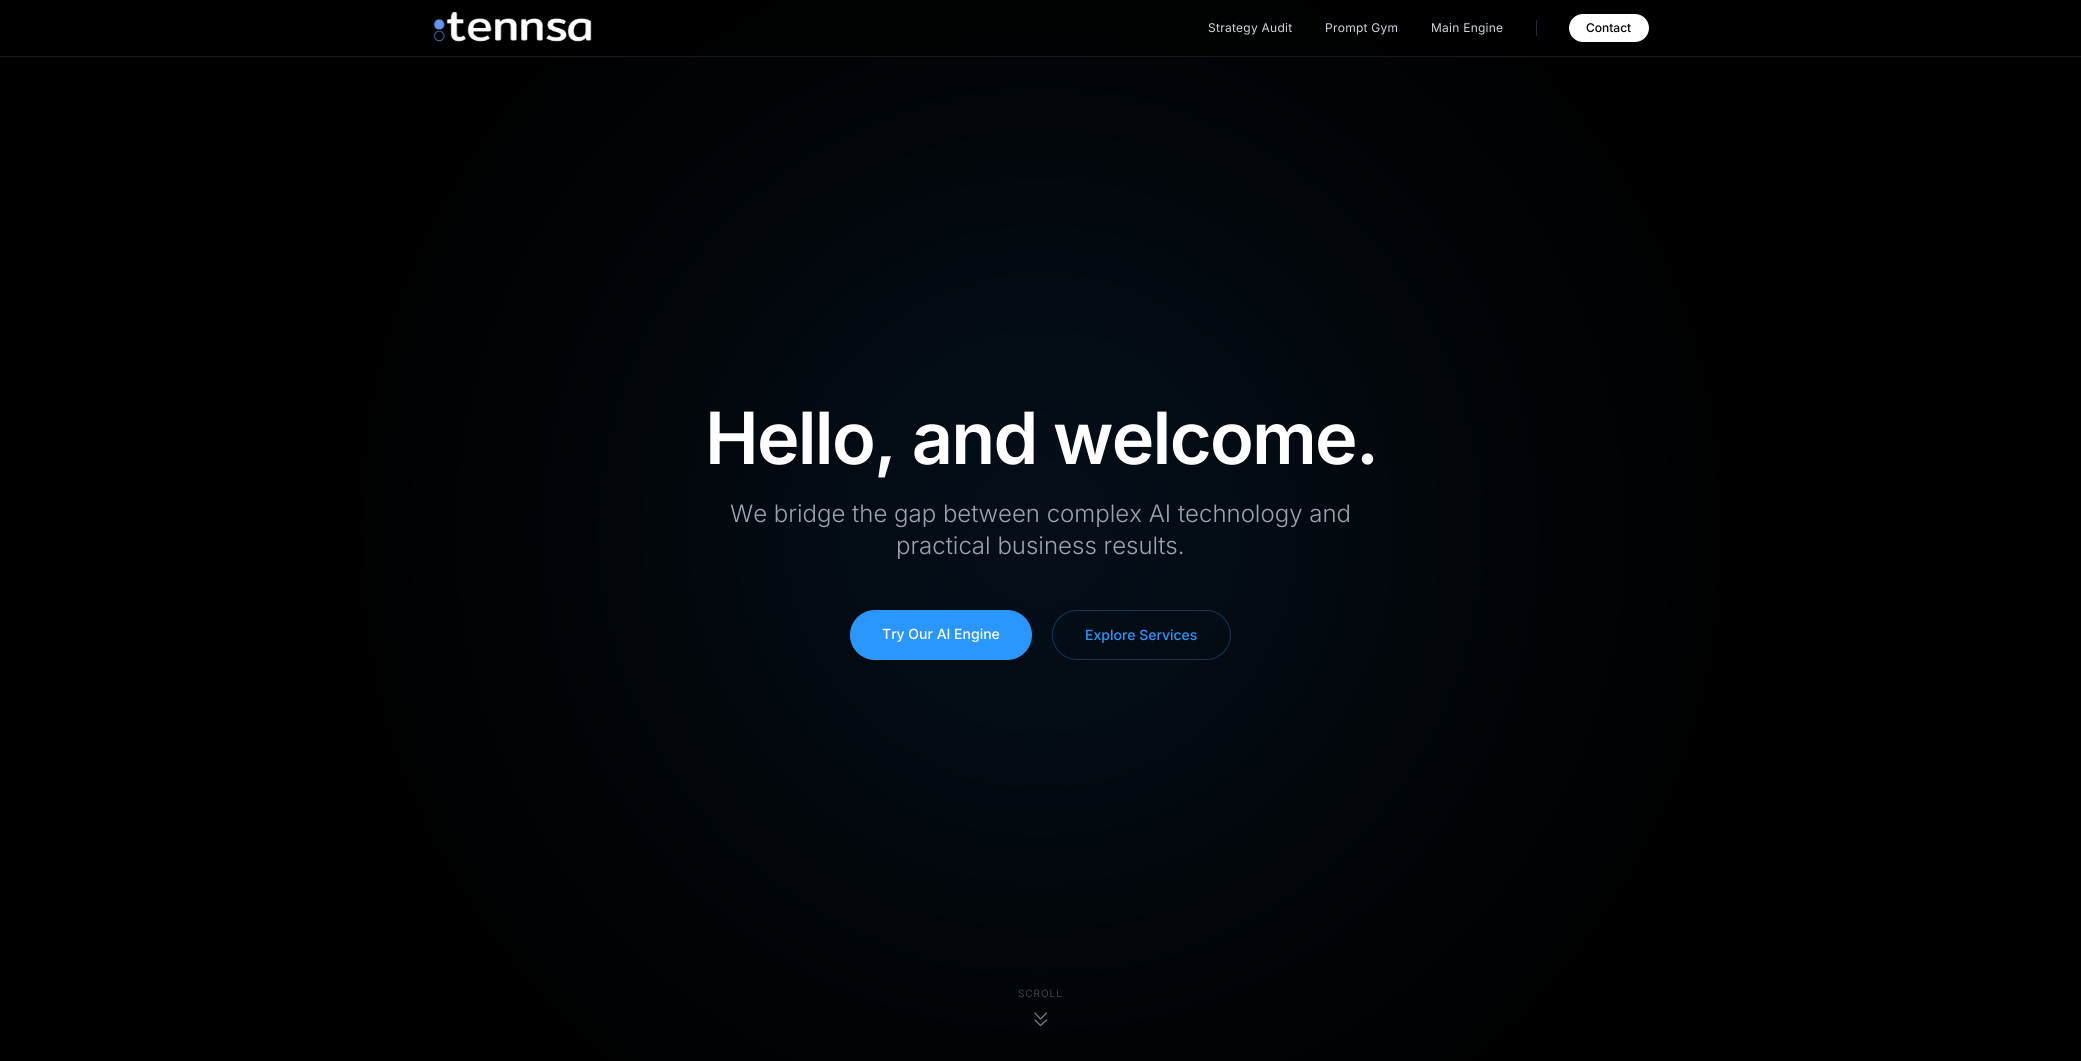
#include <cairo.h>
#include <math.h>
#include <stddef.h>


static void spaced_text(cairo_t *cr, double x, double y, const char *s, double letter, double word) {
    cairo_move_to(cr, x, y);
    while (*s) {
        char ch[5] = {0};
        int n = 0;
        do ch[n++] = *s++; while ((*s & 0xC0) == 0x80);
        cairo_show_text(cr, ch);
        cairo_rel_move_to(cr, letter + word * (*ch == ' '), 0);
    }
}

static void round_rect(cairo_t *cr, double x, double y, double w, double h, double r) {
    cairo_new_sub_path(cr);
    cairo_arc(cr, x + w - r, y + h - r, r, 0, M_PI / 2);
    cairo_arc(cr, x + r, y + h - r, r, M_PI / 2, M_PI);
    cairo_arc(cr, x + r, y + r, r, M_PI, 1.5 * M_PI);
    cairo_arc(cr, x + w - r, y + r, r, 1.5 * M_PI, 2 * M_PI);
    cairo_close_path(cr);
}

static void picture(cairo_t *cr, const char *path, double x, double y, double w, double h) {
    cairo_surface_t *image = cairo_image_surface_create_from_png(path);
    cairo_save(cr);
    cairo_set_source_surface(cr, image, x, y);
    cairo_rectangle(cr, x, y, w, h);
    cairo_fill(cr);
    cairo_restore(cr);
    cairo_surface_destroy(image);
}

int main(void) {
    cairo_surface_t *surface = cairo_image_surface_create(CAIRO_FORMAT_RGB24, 2081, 1061);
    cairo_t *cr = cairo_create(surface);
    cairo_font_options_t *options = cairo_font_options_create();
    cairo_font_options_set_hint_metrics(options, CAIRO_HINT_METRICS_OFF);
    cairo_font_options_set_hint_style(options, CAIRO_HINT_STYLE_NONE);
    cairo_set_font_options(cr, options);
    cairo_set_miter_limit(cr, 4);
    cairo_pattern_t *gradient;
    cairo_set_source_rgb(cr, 1, 1, 1);
    cairo_paint(cr);
    cairo_set_source_rgb(cr, 0.102, 0.102, 0.102);
    cairo_rectangle(cr, 0, 56, 2081, 1);
    cairo_fill(cr);
    gradient = cairo_pattern_create_radial(1041, 531, 0, 1041, 531, 1168);
    cairo_pattern_add_color_stop_rgba(gradient, 0, 0.004, 0.012, 0.02, 1);
    cairo_pattern_add_color_stop_rgba(gradient, 0.6, 0, 0, 0, 1);
    cairo_set_source(cr, gradient);
    cairo_pattern_destroy(gradient);
    cairo_rectangle(cr, 0, 0, 2081, 56);
    cairo_fill(cr);
    picture(cr, "img1.png", 433, 12, 159, 30);
    cairo_select_font_face(cr, "Inter", CAIRO_FONT_SLANT_NORMAL, CAIRO_FONT_WEIGHT_NORMAL);
    cairo_set_font_size(cr, 12);
    cairo_set_source_rgb(cr, 0.82, 0.835, 0.859);
    spaced_text(cr, 1208, 32, "Strategy Audit", 0.25, 0);
    spaced_text(cr, 1325, 32, "Prompt Gym", 0.25, 0);
    spaced_text(cr, 1431, 32, "Main Engine", 0.25, 0);
    cairo_set_source_rgb(cr, 0.122, 0.161, 0.216);
    cairo_rectangle(cr, 1536, 20, 1, 16);
    cairo_fill(cr);
    cairo_set_source_rgb(cr, 1, 1, 1);
    round_rect(cr, 1569, 14, 80, 28, 14);
    cairo_fill(cr);
    cairo_select_font_face(cr, "Inter Medium", CAIRO_FONT_SLANT_NORMAL, CAIRO_FONT_WEIGHT_NORMAL);
    cairo_set_source_rgb(cr, 0, 0, 0);
    cairo_move_to(cr, 1586, 32);
    cairo_show_text(cr, "Contact");
    gradient = cairo_pattern_create_radial(1041, 531, 0, 1041, 531, 1168);
    cairo_pattern_add_color_stop_rgba(gradient, 0, 0.016, 0.059, 0.102, 1);
    cairo_pattern_add_color_stop_rgba(gradient, 0.6, 0, 0, 0, 1);
    cairo_set_source(cr, gradient);
    cairo_pattern_destroy(gradient);
    cairo_rectangle(cr, 0, 57, 2081, 1004);
    cairo_fill(cr);
    cairo_select_font_face(cr, "Inter SemiBold", CAIRO_FONT_SLANT_NORMAL, CAIRO_FONT_WEIGHT_NORMAL);
    cairo_set_font_size(cr, 72);
    cairo_set_source_rgb(cr, 1, 1, 1);
    spaced_text(cr, 705, 464, "Hello, and welcome.", -1.75, 0);
    cairo_select_font_face(cr, "Inter Light", CAIRO_FONT_SLANT_NORMAL, CAIRO_FONT_WEIGHT_NORMAL);
    cairo_set_font_size(cr, 24);
    cairo_set_source_rgb(cr, 0.612, 0.639, 0.686);
    cairo_move_to(cr, 730, 522);
    cairo_show_text(cr, "We bridge the gap between complex AI technology and");
    cairo_move_to(cr, 896, 554);
    cairo_show_text(cr, "practical business results.");
    cairo_set_source_rgb(cr, 0.161, 0.592, 1);
    round_rect(cr, 850, 610, 182, 50, 25);
    cairo_fill(cr);
    cairo_select_font_face(cr, "Inter Medium", CAIRO_FONT_SLANT_NORMAL, CAIRO_FONT_WEIGHT_NORMAL);
    cairo_set_font_size(cr, 14);
    cairo_set_source_rgb(cr, 1, 1, 1);
    cairo_move_to(cr, 882, 639);
    cairo_show_text(cr, "Try Our AI Engine");
    round_rect(cr, 1052.5, 610.5, 178, 49, 24.5);
    cairo_set_source_rgba(cr, 0.161, 0.592, 1, 0.3);
    cairo_set_line_width(cr, 1);
    cairo_stroke(cr);
    cairo_set_source_rgb(cr, 0.161, 0.592, 1);
    cairo_move_to(cr, 1085, 640);
    cairo_show_text(cr, "Explore Services");
    cairo_select_font_face(cr, "Inter Light", CAIRO_FONT_SLANT_NORMAL, CAIRO_FONT_WEIGHT_NORMAL);
    cairo_set_font_size(cr, 10);
    cairo_set_source_rgb(cr, 0.31, 0.329, 0.361);
    spaced_text(cr, 1018, 997, "SCROLL", 1, 0);
    cairo_new_path(cr);
    cairo_move_to(cr, 1046.5, 1020);
    cairo_line_to(cr, 1040.5, 1025.5);
    cairo_line_to(cr, 1035, 1020);
    cairo_move_to(cr, 1046.5, 1013);
    cairo_line_to(cr, 1040.5, 1019);
    cairo_line_to(cr, 1035, 1013);
    cairo_set_source_rgb(cr, 0.502, 0.51, 0.518);
    cairo_set_line_width(cr, 1.2);
    cairo_set_line_cap(cr, CAIRO_LINE_CAP_ROUND);
    cairo_set_line_join(cr, CAIRO_LINE_JOIN_ROUND);
    cairo_stroke(cr);
    cairo_surface_write_to_png(surface, "page.png");
    cairo_font_options_destroy(options);
    cairo_destroy(cr);
    cairo_surface_destroy(surface);
    return 0;
}
